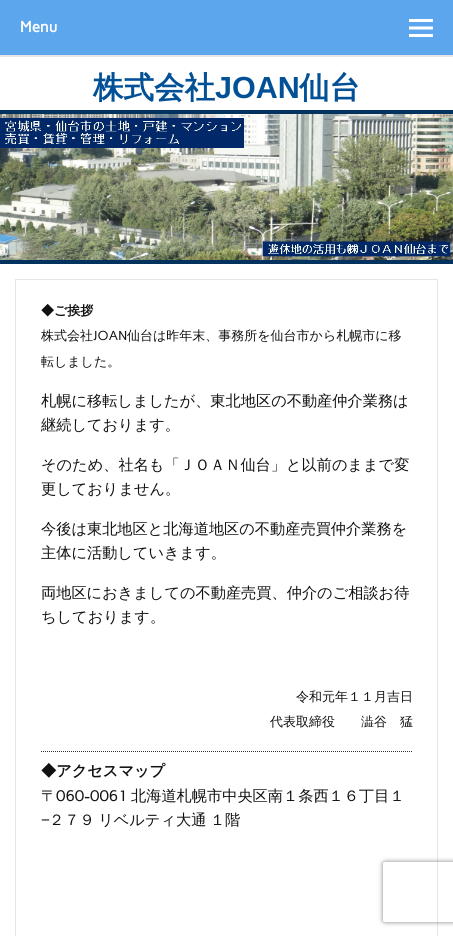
#include <cairo.h>
#include <math.h>
#include <stddef.h>


static void spaced_text(cairo_t *cr, double x, double y, const char *s, double letter, double word) {
    cairo_move_to(cr, x, y);
    while (*s) {
        char ch[5] = {0};
        int n = 0;
        do ch[n++] = *s++; while ((*s & 0xC0) == 0x80);
        cairo_show_text(cr, ch);
        cairo_rel_move_to(cr, letter + word * (*ch == ' '), 0);
    }
}

static void round_rect(cairo_t *cr, double x, double y, double w, double h, double r) {
    cairo_new_sub_path(cr);
    cairo_arc(cr, x + w - r, y + h - r, r, 0, M_PI / 2);
    cairo_arc(cr, x + r, y + h - r, r, M_PI / 2, M_PI);
    cairo_arc(cr, x + r, y + r, r, M_PI, 1.5 * M_PI);
    cairo_arc(cr, x + w - r, y + r, r, 1.5 * M_PI, 2 * M_PI);
    cairo_close_path(cr);
}

static void shadow(cairo_t *cr, double x, double y, double w, double h, double r, double blur, double alpha) {
    cairo_push_group_with_content(cr, CAIRO_CONTENT_ALPHA);
    cairo_set_operator(cr, CAIRO_OPERATOR_SOURCE);
    for (int i = 15; i >= -15 && fmin(w, h) + blur * i / 3 > 0; i -= 2) {
        double e = blur * i / 6;
        cairo_set_source_rgba(cr, 0, 0, 0, alpha * erfc((i - 1) / 8.5) / 2);
        round_rect(cr, x - e, y - e, w + 2 * e, h + 2 * e, fmax(0, fmin(r + e + blur * .6, fmin(w, h) / 2 + e)));
        cairo_fill(cr);
    }
    cairo_pattern_t *soft = cairo_pop_group(cr);
    cairo_mask(cr, soft);
    cairo_pattern_destroy(soft);
}

static void picture(cairo_t *cr, const char *path, double x, double y, double w, double h) {
    cairo_surface_t *image = cairo_image_surface_create_from_png(path);
    cairo_save(cr);
    cairo_set_source_surface(cr, image, x, y);
    cairo_rectangle(cr, x, y, w, h);
    cairo_fill(cr);
    cairo_restore(cr);
    cairo_surface_destroy(image);
}

int main(void) {
    cairo_surface_t *surface = cairo_image_surface_create(CAIRO_FORMAT_RGB24, 453, 936);
    cairo_t *cr = cairo_create(surface);
    cairo_font_options_t *options = cairo_font_options_create();
    cairo_font_options_set_hint_metrics(options, CAIRO_HINT_METRICS_OFF);
    cairo_font_options_set_hint_style(options, CAIRO_HINT_STYLE_NONE);
    cairo_set_font_options(cr, options);
    cairo_set_miter_limit(cr, 4);
    cairo_set_source_rgb(cr, 1, 1, 1);
    cairo_paint(cr);
    cairo_set_source_rgb(cr, 0.898, 0.898, 0.898);
    cairo_rectangle(cr, 0, 55, 453, 2);
    cairo_fill(cr);
    cairo_set_source_rgb(cr, 0.357, 0.651, 0.929);
    cairo_rectangle(cr, 0, 0, 453, 55);
    cairo_fill(cr);
    cairo_select_font_face(cr, "Carme", CAIRO_FONT_SLANT_NORMAL, CAIRO_FONT_WEIGHT_BOLD);
    cairo_set_font_size(cr, 15.2);
    cairo_set_source_rgb(cr, 1, 1, 1);
    cairo_move_to(cr, 20, 32);
    cairo_show_text(cr, "Menu");
    picture(cr, "img1.png", 409, 19, 24, 18);
    cairo_set_source_rgb(cr, 0.012, 0.196, 0.369);
    cairo_rectangle(cr, 0, 110, 453, 4);
    cairo_fill(cr);
    cairo_select_font_face(cr, "WenQuanYi Zen Hei", CAIRO_FONT_SLANT_NORMAL, CAIRO_FONT_WEIGHT_BOLD);
    cairo_set_font_size(cr, 30.5);
    cairo_set_source_rgb(cr, 0.008, 0.314, 0.584);
    cairo_move_to(cr, 93, 98);
    cairo_show_text(cr, "株式会社");
    cairo_select_font_face(cr, "Liberation Sans", CAIRO_FONT_SLANT_NORMAL, CAIRO_FONT_WEIGHT_BOLD);
    cairo_move_to(cr, 215, 98);
    cairo_show_text(cr, "JOAN");
    cairo_select_font_face(cr, "WenQuanYi Zen Hei", CAIRO_FONT_SLANT_NORMAL, CAIRO_FONT_WEIGHT_BOLD);
    cairo_move_to(cr, 299, 98);
    cairo_show_text(cr, "仙台");
    cairo_set_source_rgb(cr, 0.012, 0.196, 0.369);
    cairo_rectangle(cr, 0, 260, 453, 4);
    cairo_fill(cr);
    picture(cr, "img2.png", 0, 114, 453, 146);
    cairo_rectangle(cr, 15.5, 279.5, 422, 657);
    cairo_set_source_rgb(cr, 0.898, 0.898, 0.898);
    cairo_set_line_width(cr, 1);
    cairo_stroke(cr);
    cairo_set_font_size(cr, 13);
    cairo_set_source_rgb(cr, 0.067, 0.067, 0.067);
    cairo_move_to(cr, 41, 315);
    cairo_show_text(cr, "◆ご挨拶");
    cairo_select_font_face(cr, "WenQuanYi Zen Hei Medium", CAIRO_FONT_SLANT_NORMAL, CAIRO_FONT_WEIGHT_NORMAL);
    cairo_move_to(cr, 41, 340);
    cairo_show_text(cr, "株式会社");
    cairo_select_font_face(cr, "Carme", CAIRO_FONT_SLANT_NORMAL, CAIRO_FONT_WEIGHT_NORMAL);
    cairo_move_to(cr, 93, 340);
    cairo_show_text(cr, "JOAN");
    cairo_select_font_face(cr, "WenQuanYi Zen Hei Medium", CAIRO_FONT_SLANT_NORMAL, CAIRO_FONT_WEIGHT_NORMAL);
    cairo_move_to(cr, 127, 340);
    cairo_show_text(cr, "仙台は昨年末、事務所を仙台市から札幌市に移");
    cairo_move_to(cr, 41, 366);
    cairo_show_text(cr, "転しました。");
    cairo_set_font_size(cr, 15.2);
    cairo_move_to(cr, 41, 406);
    cairo_show_text(cr, "札幌に移転しましたが、東北地区の不動産仲介業務は");
    cairo_move_to(cr, 41, 430);
    cairo_show_text(cr, "継続しております。");
    cairo_move_to(cr, 41, 470);
    cairo_show_text(cr, "そのため、社名も「ＪＯＡＮ仙台」と以前のままで変");
    cairo_move_to(cr, 41, 494);
    cairo_show_text(cr, "更しておりません。");
    cairo_move_to(cr, 41, 534);
    cairo_show_text(cr, "今後は東北地区と北海道地区の不動産売買仲介業務を");
    cairo_move_to(cr, 41, 558);
    cairo_show_text(cr, "主体に活動していきます。");
    cairo_move_to(cr, 41, 598);
    cairo_show_text(cr, "両地区におきましての不動産売買、仲介のご相談お待");
    cairo_move_to(cr, 41, 622);
    cairo_show_text(cr, "ちしております。");
    cairo_set_font_size(cr, 13);
    cairo_move_to(cr, 296, 701);
    cairo_show_text(cr, "令和元年１１月吉日");
    cairo_move_to(cr, 270, 726);
    cairo_show_text(cr, "代表取締役　　澁谷　猛");
    cairo_new_path(cr);
    cairo_move_to(cr, 41, 751.5);
    cairo_line_to(cr, 413, 751.5);
    cairo_set_source_rgb(cr, 0.2, 0.2, 0.2);
    cairo_set_dash(cr, (double[]){1, 1}, 2, 0);
    cairo_stroke(cr);
    cairo_select_font_face(cr, "WenQuanYi Zen Hei", CAIRO_FONT_SLANT_NORMAL, CAIRO_FONT_WEIGHT_BOLD);
    cairo_set_font_size(cr, 15.2);
    cairo_set_source_rgb(cr, 0.067, 0.067, 0.067);
    cairo_move_to(cr, 41, 776);
    cairo_show_text(cr, "◆アクセスマップ");
    cairo_select_font_face(cr, "WenQuanYi Zen Hei Medium", CAIRO_FONT_SLANT_NORMAL, CAIRO_FONT_WEIGHT_NORMAL);
    cairo_move_to(cr, 41, 801);
    cairo_show_text(cr, "〒");
    cairo_select_font_face(cr, "Carme", CAIRO_FONT_SLANT_NORMAL, CAIRO_FONT_WEIGHT_NORMAL);
    cairo_move_to(cr, 56, 801);
    cairo_show_text(cr, "060-0061");
    cairo_select_font_face(cr, "WenQuanYi Zen Hei Medium", CAIRO_FONT_SLANT_NORMAL, CAIRO_FONT_WEIGHT_NORMAL);
    cairo_move_to(cr, 131, 801);
    cairo_show_text(cr, "北海道札幌市中央区南１条西１６丁目１");
    cairo_select_font_face(cr, "Liberation Sans", CAIRO_FONT_SLANT_NORMAL, CAIRO_FONT_WEIGHT_NORMAL);
    cairo_move_to(cr, 41, 825);
    cairo_show_text(cr, "−");
    cairo_select_font_face(cr, "WenQuanYi Zen Hei Medium", CAIRO_FONT_SLANT_NORMAL, CAIRO_FONT_WEIGHT_NORMAL);
    spaced_text(cr, 49, 825, "２７９ リベルティ大通 １階", 0, -1);
    cairo_save(cr);
    cairo_set_fill_rule(cr, CAIRO_FILL_RULE_EVEN_ODD);
    cairo_new_path(cr);
    cairo_move_to(cr, 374, 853);
    cairo_line_to(cr, 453, 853);
    cairo_line_to(cr, 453, 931);
    cairo_line_to(cr, 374, 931);
    cairo_close_path(cr);
    cairo_move_to(cr, 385, 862);
    cairo_line_to(cr, 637, 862);
    cairo_curve_to(cr, 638, 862, 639, 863, 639, 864);
    cairo_line_to(cr, 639, 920);
    cairo_curve_to(cr, 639, 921, 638, 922, 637, 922);
    cairo_line_to(cr, 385, 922);
    cairo_curve_to(cr, 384, 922, 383, 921, 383, 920);
    cairo_line_to(cr, 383, 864);
    cairo_curve_to(cr, 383, 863, 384, 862, 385, 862);
    cairo_close_path(cr);
    cairo_clip(cr);
    cairo_set_source_rgb(cr, 0.502, 0.502, 0.502);
    shadow(cr, 383, 862, 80, 60, 2, 2.5, 1);
    cairo_restore(cr);
    cairo_surface_write_to_png(surface, "page.png");
    cairo_font_options_destroy(options);
    cairo_destroy(cr);
    cairo_surface_destroy(surface);
    return 0;
}
